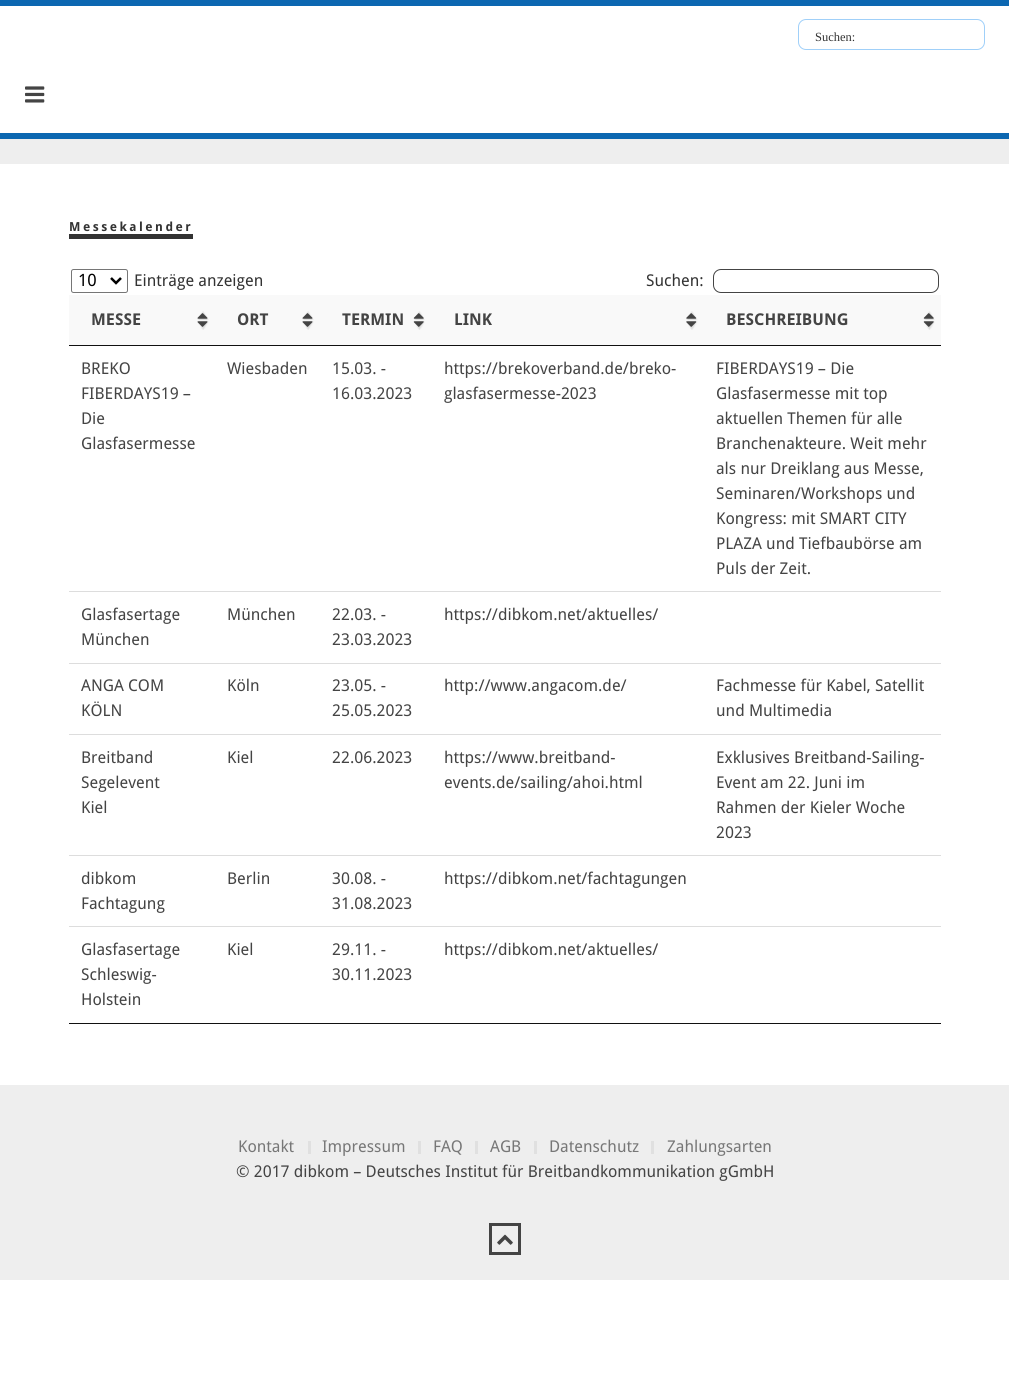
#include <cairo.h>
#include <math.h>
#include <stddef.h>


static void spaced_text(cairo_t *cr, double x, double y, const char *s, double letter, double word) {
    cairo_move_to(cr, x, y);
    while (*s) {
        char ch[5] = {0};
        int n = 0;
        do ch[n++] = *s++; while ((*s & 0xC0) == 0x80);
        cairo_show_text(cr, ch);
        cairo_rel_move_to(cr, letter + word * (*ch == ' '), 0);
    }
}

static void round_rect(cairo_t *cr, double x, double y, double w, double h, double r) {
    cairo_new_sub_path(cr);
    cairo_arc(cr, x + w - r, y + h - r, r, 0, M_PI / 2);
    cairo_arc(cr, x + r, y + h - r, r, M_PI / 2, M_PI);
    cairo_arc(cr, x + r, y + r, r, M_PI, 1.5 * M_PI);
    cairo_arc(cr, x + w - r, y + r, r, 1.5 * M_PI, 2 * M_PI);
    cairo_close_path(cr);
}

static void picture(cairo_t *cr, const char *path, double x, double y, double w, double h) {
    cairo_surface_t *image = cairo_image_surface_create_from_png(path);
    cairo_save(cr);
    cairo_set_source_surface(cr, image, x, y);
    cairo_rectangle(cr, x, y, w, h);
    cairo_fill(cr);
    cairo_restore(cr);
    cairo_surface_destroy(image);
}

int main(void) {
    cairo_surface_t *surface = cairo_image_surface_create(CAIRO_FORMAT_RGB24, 1009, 1375);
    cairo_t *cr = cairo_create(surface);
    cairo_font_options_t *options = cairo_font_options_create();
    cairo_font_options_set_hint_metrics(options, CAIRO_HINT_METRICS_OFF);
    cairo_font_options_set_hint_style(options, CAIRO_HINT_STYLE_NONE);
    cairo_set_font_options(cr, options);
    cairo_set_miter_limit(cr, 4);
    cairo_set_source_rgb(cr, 1, 1, 1);
    cairo_paint(cr);
    cairo_set_source_rgb(cr, 0.047, 0.404, 0.694);
    cairo_rectangle(cr, 0, 0, 1009, 6);
    cairo_fill(cr);
    round_rect(cr, 798.5, 19.5, 186, 30, 7.5);
    cairo_set_source_rgb(cr, 0.627, 0.816, 0.973);
    cairo_set_line_width(cr, 1);
    cairo_stroke(cr);
    cairo_select_font_face(cr, "Liberation Serif", CAIRO_FONT_SLANT_NORMAL, CAIRO_FONT_WEIGHT_NORMAL);
    cairo_set_font_size(cr, 12.5);
    cairo_set_source_rgb(cr, 0.2, 0.2, 0.2);
    cairo_move_to(cr, 815, 41);
    cairo_show_text(cr, "Suchen:");
    cairo_set_source_rgb(cr, 0.047, 0.404, 0.694);
    cairo_rectangle(cr, 0, 133, 1009, 6);
    cairo_fill(cr);
    picture(cr, "img1.png", 25, 86, 20, 17);
    cairo_set_source_rgb(cr, 0.933, 0.933, 0.933);
    cairo_rectangle(cr, 0, 139, 1009, 1141);
    cairo_fill(cr);
    cairo_set_source_rgb(cr, 1, 1, 1);
    cairo_rectangle(cr, 0, 164, 1009, 921);
    cairo_fill(cr);
    cairo_select_font_face(cr, "Droid Sans", CAIRO_FONT_SLANT_NORMAL, CAIRO_FONT_WEIGHT_BOLD);
    cairo_set_source_rgb(cr, 0.2, 0.2, 0.2);
    spaced_text(cr, 69, 231, "Messekalender", 2.5, 0);
    cairo_rectangle(cr, 69, 234, 124, 5);
    cairo_fill(cr);
    round_rect(cr, 71.5, 269.5, 56, 23, 2);
    cairo_set_source_rgb(cr, 0.463, 0.463, 0.463);
    cairo_stroke(cr);
    cairo_new_path(cr);
    cairo_move_to(cr, 111, 278);
    cairo_line_to(cr, 116, 283);
    cairo_line_to(cr, 121, 278);
    cairo_set_source_rgb(cr, 0, 0, 0);
    cairo_set_line_width(cr, 2.5);
    cairo_stroke(cr);
    cairo_select_font_face(cr, "Droid Sans", CAIRO_FONT_SLANT_NORMAL, CAIRO_FONT_WEIGHT_NORMAL);
    cairo_set_font_size(cr, 17);
    cairo_move_to(cr, 78, 286);
    cairo_show_text(cr, "10");
    cairo_set_font_size(cr, 16.25);
    cairo_set_source_rgb(cr, 0.2, 0.2, 0.2);
    cairo_move_to(cr, 134, 286);
    cairo_show_text(cr, "Einträge anzeigen");
    cairo_move_to(cr, 646, 286);
    cairo_show_text(cr, "Suchen:");
    round_rect(cr, 713.5, 269.5, 225, 23, 7.5);
    cairo_set_source_rgb(cr, 0.267, 0.267, 0.267);
    cairo_set_line_width(cr, 1);
    cairo_stroke(cr);
    cairo_set_source_rgb(cr, 0.067, 0.067, 0.067);
    cairo_rectangle(cr, 69, 1023, 872, 1);
    cairo_fill(cr);
    cairo_set_source_rgb(cr, 0.976, 0.976, 0.976);
    cairo_rectangle(cr, 69, 295, 872, 50);
    cairo_fill(cr);
    picture(cr, "img2.png", 197, 311, 12, 19);
    cairo_set_source_rgb(cr, 0.067, 0.067, 0.067);
    cairo_rectangle(cr, 69, 345, 872, 1);
    cairo_fill(cr);
    cairo_select_font_face(cr, "Droid Sans", CAIRO_FONT_SLANT_NORMAL, CAIRO_FONT_WEIGHT_BOLD);
    cairo_set_source_rgb(cr, 0.267, 0.267, 0.267);
    cairo_move_to(cr, 91, 325);
    cairo_show_text(cr, "MESSE");
    picture(cr, "img3.png", 197, 313, 11, 14);
    picture(cr, "img2.png", 302, 311, 12, 19);
    cairo_move_to(cr, 237, 325);
    cairo_show_text(cr, "ORT");
    picture(cr, "img3.png", 302, 313, 11, 14);
    picture(cr, "img4.png", 414, 311, 11, 19);
    cairo_move_to(cr, 342, 325);
    cairo_show_text(cr, "TERMIN");
    picture(cr, "img5.png", 413, 313, 11, 14);
    picture(cr, "img6.png", 686, 311, 12, 19);
    cairo_move_to(cr, 454, 325);
    cairo_show_text(cr, "LINK");
    picture(cr, "img7.png", 686, 313, 11, 14);
    picture(cr, "img8.png", 924, 311, 11, 19);
    cairo_move_to(cr, 726, 325);
    cairo_show_text(cr, "BESCHREIBUNG");
    picture(cr, "img9.png", 923, 313, 11, 14);
    cairo_select_font_face(cr, "Droid Sans", CAIRO_FONT_SLANT_NORMAL, CAIRO_FONT_WEIGHT_NORMAL);
    cairo_move_to(cr, 81, 374);
    cairo_show_text(cr, "BREKO");
    cairo_move_to(cr, 81, 399);
    cairo_show_text(cr, "FIBERDAYS19 –");
    cairo_move_to(cr, 81, 424);
    cairo_show_text(cr, "Die");
    cairo_move_to(cr, 81, 449);
    cairo_show_text(cr, "Glasfasermesse");
    cairo_move_to(cr, 227, 374);
    cairo_show_text(cr, "Wiesbaden");
    cairo_move_to(cr, 332, 374);
    cairo_show_text(cr, "15.03. -");
    cairo_move_to(cr, 332, 399);
    cairo_show_text(cr, "16.03.2023");
    cairo_move_to(cr, 444, 374);
    cairo_show_text(cr, "https://brekoverband.de/breko-");
    cairo_move_to(cr, 444, 399);
    cairo_show_text(cr, "glasfasermesse-2023");
    cairo_move_to(cr, 716, 374);
    cairo_show_text(cr, "FIBERDAYS19 – Die");
    cairo_move_to(cr, 716, 399);
    cairo_show_text(cr, "Glasfasermesse mit top");
    cairo_move_to(cr, 716, 424);
    cairo_show_text(cr, "aktuellen Themen für alle");
    cairo_move_to(cr, 716, 449);
    cairo_show_text(cr, "Branchenakteure. Weit mehr");
    cairo_move_to(cr, 716, 474);
    cairo_show_text(cr, "als nur Dreiklang aus Messe,");
    cairo_move_to(cr, 716, 499);
    cairo_show_text(cr, "Seminaren/Workshops und");
    cairo_move_to(cr, 716, 524);
    cairo_show_text(cr, "Kongress: mit SMART CITY");
    cairo_move_to(cr, 716, 549);
    cairo_show_text(cr, "PLAZA und Tiefbaubörse am");
    cairo_move_to(cr, 716, 574);
    cairo_show_text(cr, "Puls der Zeit.");
    cairo_set_source_rgb(cr, 0.867, 0.867, 0.867);
    cairo_rectangle(cr, 69, 591, 872, 1);
    cairo_fill(cr);
    cairo_set_source_rgb(cr, 0.267, 0.267, 0.267);
    cairo_move_to(cr, 81, 620);
    cairo_show_text(cr, "Glasfasertage");
    cairo_move_to(cr, 81, 645);
    cairo_show_text(cr, "München");
    cairo_move_to(cr, 227, 620);
    cairo_show_text(cr, "München");
    cairo_move_to(cr, 332, 620);
    cairo_show_text(cr, "22.03. -");
    cairo_move_to(cr, 332, 645);
    cairo_show_text(cr, "23.03.2023");
    cairo_move_to(cr, 444, 620);
    cairo_show_text(cr, "https://dibkom.net/aktuelles/");
    cairo_set_source_rgb(cr, 0.867, 0.867, 0.867);
    cairo_rectangle(cr, 69, 663, 872, 1);
    cairo_fill(cr);
    cairo_set_source_rgb(cr, 0.267, 0.267, 0.267);
    cairo_move_to(cr, 81, 691);
    cairo_show_text(cr, "ANGA COM");
    cairo_move_to(cr, 81, 716);
    cairo_show_text(cr, "KÖLN");
    cairo_move_to(cr, 227, 691);
    cairo_show_text(cr, "Köln");
    cairo_move_to(cr, 332, 691);
    cairo_show_text(cr, "23.05. -");
    cairo_move_to(cr, 332, 716);
    cairo_show_text(cr, "25.05.2023");
    cairo_move_to(cr, 444, 691);
    cairo_show_text(cr, "http://www.angacom.de/");
    cairo_move_to(cr, 716, 691);
    cairo_show_text(cr, "Fachmesse für Kabel, Satellit");
    cairo_move_to(cr, 716, 716);
    cairo_show_text(cr, "und Multimedia");
    cairo_set_source_rgb(cr, 0.867, 0.867, 0.867);
    cairo_rectangle(cr, 69, 734, 872, 1);
    cairo_fill(cr);
    cairo_set_source_rgb(cr, 0.267, 0.267, 0.267);
    cairo_move_to(cr, 81, 763);
    cairo_show_text(cr, "Breitband");
    cairo_move_to(cr, 81, 788);
    cairo_show_text(cr, "Segelevent");
    cairo_move_to(cr, 81, 813);
    cairo_show_text(cr, "Kiel");
    cairo_move_to(cr, 227, 763);
    cairo_show_text(cr, "Kiel");
    cairo_move_to(cr, 332, 763);
    cairo_show_text(cr, "22.06.2023");
    cairo_move_to(cr, 444, 763);
    cairo_show_text(cr, "https://www.breitband-");
    cairo_move_to(cr, 444, 788);
    cairo_show_text(cr, "events.de/sailing/ahoi.html");
    cairo_move_to(cr, 716, 763);
    cairo_show_text(cr, "Exklusives Breitband-Sailing-");
    cairo_move_to(cr, 716, 788);
    cairo_show_text(cr, "Event am 22. Juni im");
    cairo_move_to(cr, 716, 813);
    cairo_show_text(cr, "Rahmen der Kieler Woche");
    cairo_move_to(cr, 716, 838);
    cairo_show_text(cr, "2023");
    cairo_set_source_rgb(cr, 0.867, 0.867, 0.867);
    cairo_rectangle(cr, 69, 855, 872, 1);
    cairo_fill(cr);
    cairo_set_source_rgb(cr, 0.267, 0.267, 0.267);
    cairo_move_to(cr, 81, 884);
    cairo_show_text(cr, "dibkom");
    cairo_move_to(cr, 81, 909);
    cairo_show_text(cr, "Fachtagung");
    cairo_move_to(cr, 227, 884);
    cairo_show_text(cr, "Berlin");
    cairo_move_to(cr, 332, 884);
    cairo_show_text(cr, "30.08. -");
    cairo_move_to(cr, 332, 909);
    cairo_show_text(cr, "31.08.2023");
    cairo_move_to(cr, 444, 884);
    cairo_show_text(cr, "https://dibkom.net/fachtagungen");
    cairo_set_source_rgb(cr, 0.867, 0.867, 0.867);
    cairo_rectangle(cr, 69, 926, 872, 1);
    cairo_fill(cr);
    cairo_set_source_rgb(cr, 0.267, 0.267, 0.267);
    cairo_move_to(cr, 81, 955);
    cairo_show_text(cr, "Glasfasertage");
    cairo_move_to(cr, 81, 980);
    cairo_show_text(cr, "Schleswig-");
    cairo_move_to(cr, 81, 1005);
    cairo_show_text(cr, "Holstein");
    cairo_move_to(cr, 227, 955);
    cairo_show_text(cr, "Kiel");
    cairo_move_to(cr, 332, 955);
    cairo_show_text(cr, "29.11. -");
    cairo_move_to(cr, 332, 980);
    cairo_show_text(cr, "30.11.2023");
    cairo_move_to(cr, 444, 955);
    cairo_show_text(cr, "https://dibkom.net/aktuelles/");
    cairo_set_source_rgb(cr, 0.467, 0.467, 0.467);
    cairo_move_to(cr, 238, 1152);
    cairo_show_text(cr, "Kontakt");
    cairo_set_source_rgb(cr, 0.878, 0.878, 0.878);
    cairo_rectangle(cr, 308, 1141, 3, 13);
    cairo_fill(cr);
    cairo_set_source_rgb(cr, 0.467, 0.467, 0.467);
    cairo_move_to(cr, 322, 1152);
    cairo_show_text(cr, "Impressum");
    cairo_set_source_rgb(cr, 0.878, 0.878, 0.878);
    cairo_rectangle(cr, 418, 1141, 3, 13);
    cairo_fill(cr);
    cairo_set_source_rgb(cr, 0.467, 0.467, 0.467);
    cairo_move_to(cr, 433, 1152);
    cairo_show_text(cr, "FAQ");
    cairo_set_source_rgb(cr, 0.878, 0.878, 0.878);
    cairo_rectangle(cr, 475, 1141, 3, 13);
    cairo_fill(cr);
    cairo_set_source_rgb(cr, 0.467, 0.467, 0.467);
    cairo_move_to(cr, 490, 1152);
    cairo_show_text(cr, "AGB");
    cairo_set_source_rgb(cr, 0.878, 0.878, 0.878);
    cairo_rectangle(cr, 534, 1141, 3, 13);
    cairo_fill(cr);
    cairo_set_source_rgb(cr, 0.467, 0.467, 0.467);
    cairo_move_to(cr, 549, 1152);
    cairo_show_text(cr, "Datenschutz");
    cairo_set_source_rgb(cr, 0.878, 0.878, 0.878);
    cairo_rectangle(cr, 651, 1141, 3, 13);
    cairo_fill(cr);
    cairo_set_source_rgb(cr, 0.467, 0.467, 0.467);
    cairo_move_to(cr, 667, 1152);
    cairo_show_text(cr, "Zahlungsarten");
    cairo_set_source_rgb(cr, 0.267, 0.267, 0.267);
    cairo_move_to(cr, 236, 1177);
    cairo_show_text(cr, "© 2017 dibkom – Deutsches Institut für Breitbandkommunikation gGmbH");
    cairo_rectangle(cr, 490.5, 1224.5, 29, 29);
    cairo_set_line_width(cr, 3);
    cairo_stroke(cr);
    picture(cr, "img10.png", 497, 1234, 16, 11);
    cairo_surface_write_to_png(surface, "page.png");
    cairo_font_options_destroy(options);
    cairo_destroy(cr);
    cairo_surface_destroy(surface);
    return 0;
}
